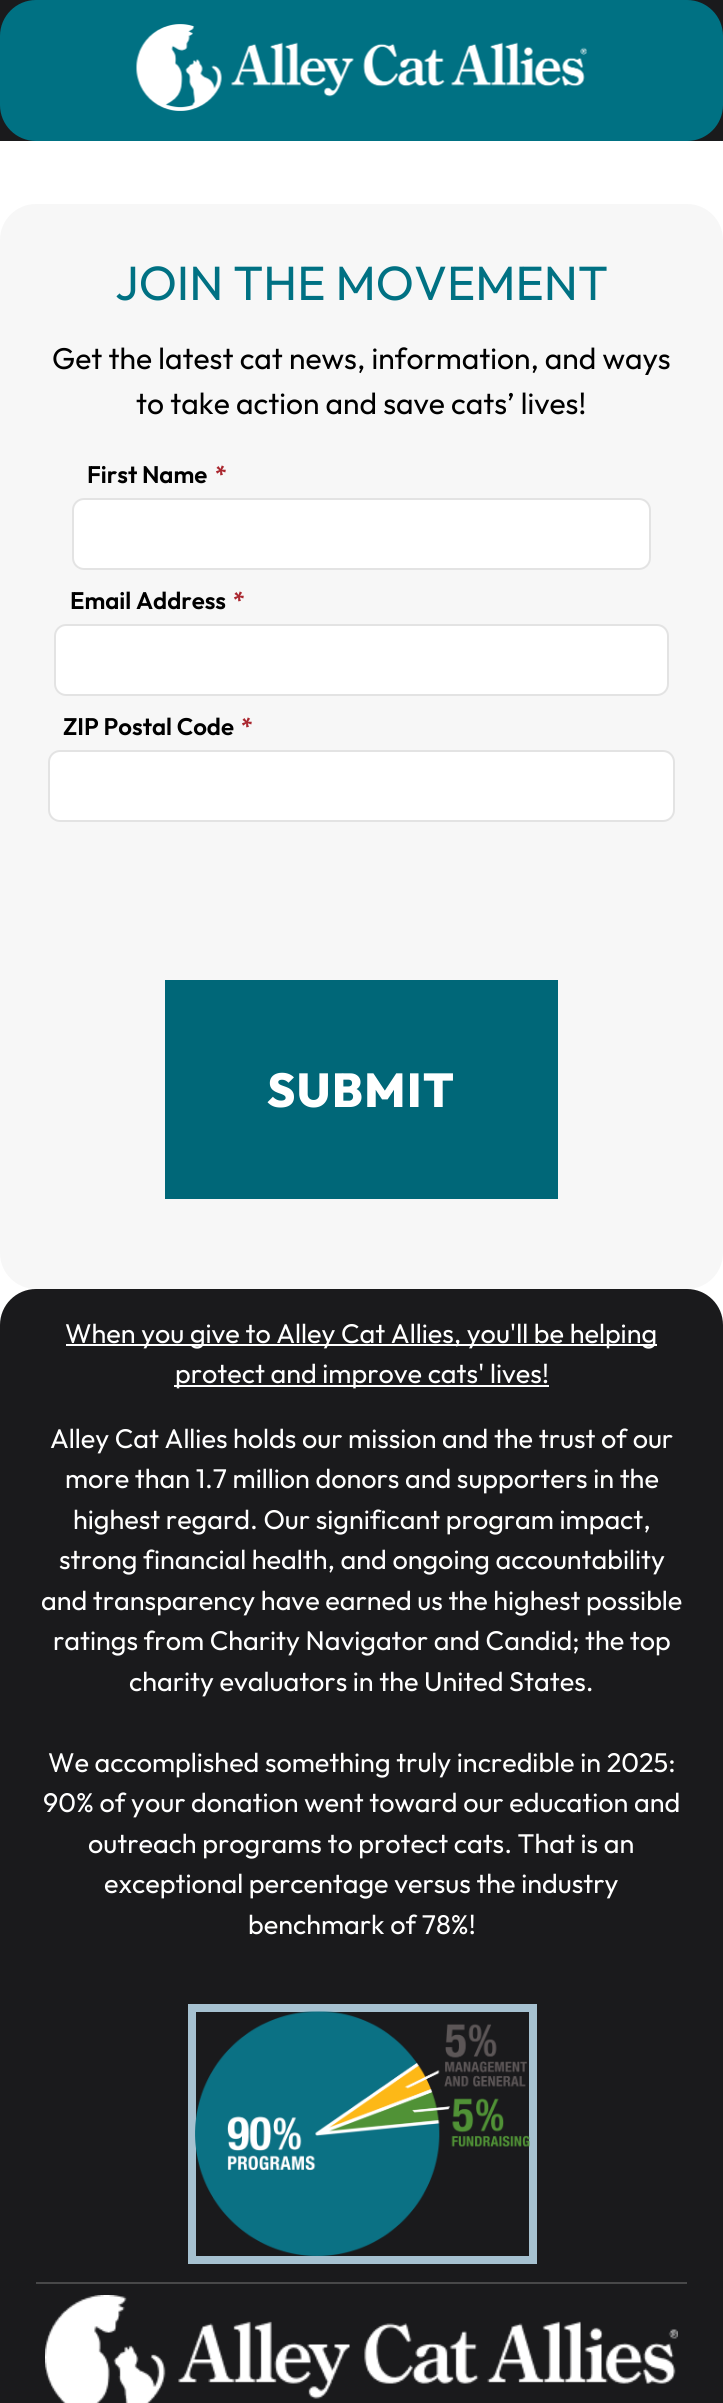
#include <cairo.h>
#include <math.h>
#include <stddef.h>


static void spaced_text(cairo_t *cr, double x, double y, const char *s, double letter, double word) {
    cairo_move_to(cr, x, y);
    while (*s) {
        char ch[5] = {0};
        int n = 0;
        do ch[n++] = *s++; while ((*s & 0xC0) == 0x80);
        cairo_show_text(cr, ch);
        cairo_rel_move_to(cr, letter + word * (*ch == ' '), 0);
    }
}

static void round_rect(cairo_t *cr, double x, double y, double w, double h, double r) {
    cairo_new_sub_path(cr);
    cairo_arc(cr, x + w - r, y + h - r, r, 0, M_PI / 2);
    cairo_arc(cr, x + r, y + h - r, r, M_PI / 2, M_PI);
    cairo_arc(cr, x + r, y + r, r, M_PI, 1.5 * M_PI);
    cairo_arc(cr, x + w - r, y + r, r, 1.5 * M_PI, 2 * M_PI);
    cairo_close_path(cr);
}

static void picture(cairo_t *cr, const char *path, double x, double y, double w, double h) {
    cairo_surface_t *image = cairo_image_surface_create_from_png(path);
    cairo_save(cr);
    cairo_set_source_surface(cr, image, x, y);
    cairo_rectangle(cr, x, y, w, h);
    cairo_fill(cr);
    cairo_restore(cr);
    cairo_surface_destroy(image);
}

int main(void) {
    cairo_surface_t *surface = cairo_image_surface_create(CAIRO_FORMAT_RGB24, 723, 2403);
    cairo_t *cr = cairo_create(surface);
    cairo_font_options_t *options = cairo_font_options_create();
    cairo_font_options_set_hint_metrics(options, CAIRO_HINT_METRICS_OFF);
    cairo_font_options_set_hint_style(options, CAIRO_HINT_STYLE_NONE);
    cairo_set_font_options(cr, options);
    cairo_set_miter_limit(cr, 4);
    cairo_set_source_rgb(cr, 1, 1, 1);
    cairo_paint(cr);
    cairo_set_source_rgb(cr, 0.102, 0.102, 0.11);
    cairo_rectangle(cr, 0, 0, 723, 141);
    cairo_fill(cr);
    cairo_set_source_rgb(cr, 0, 0.443, 0.514);
    round_rect(cr, 0, 0, 723, 141, 36);
    cairo_fill(cr);
    picture(cr, "img1.png", 136, 24, 451, 87);
    cairo_set_source_rgb(cr, 0.965, 0.965, 0.965);
    round_rect(cr, 0, 204, 723, 1085, 36);
    cairo_fill(cr);
    cairo_select_font_face(cr, "Outfit", CAIRO_FONT_SLANT_NORMAL, CAIRO_FONT_WEIGHT_NORMAL);
    cairo_set_font_size(cr, 48);
    cairo_set_source_rgb(cr, 0, 0.443, 0.514);
    cairo_move_to(cr, 115, 300);
    cairo_show_text(cr, "JOIN THE MOVEMENT");
    cairo_set_font_size(cr, 30);
    cairo_set_source_rgb(cr, 0, 0, 0);
    cairo_move_to(cr, 52, 369);
    cairo_show_text(cr, "Get the latest cat news, information, and ways");
    cairo_move_to(cr, 136, 414);
    cairo_show_text(cr, "to take action and save cats’ lives!");
    cairo_select_font_face(cr, "Outfit SemiBold", CAIRO_FONT_SLANT_NORMAL, CAIRO_FONT_WEIGHT_NORMAL);
    cairo_set_font_size(cr, 24);
    cairo_move_to(cr, 87, 483);
    cairo_show_text(cr, "First Name");
    cairo_set_source_rgb(cr, 0.667, 0.153, 0.184);
    cairo_move_to(cr, 215, 483);
    cairo_show_text(cr, "*");
    cairo_set_source_rgb(cr, 1, 1, 1);
    round_rect(cr, 73, 499, 577, 70, 11);
    cairo_fill_preserve(cr);
    cairo_set_source_rgb(cr, 0.89, 0.89, 0.89);
    cairo_stroke(cr);
    cairo_set_source_rgb(cr, 0, 0, 0);
    cairo_move_to(cr, 70, 609);
    cairo_show_text(cr, "Email Address");
    cairo_set_source_rgb(cr, 0.667, 0.153, 0.184);
    cairo_move_to(cr, 233, 609);
    cairo_show_text(cr, "*");
    cairo_set_source_rgb(cr, 1, 1, 1);
    round_rect(cr, 55, 625, 613, 70, 11);
    cairo_fill_preserve(cr);
    cairo_set_source_rgb(cr, 0.89, 0.89, 0.89);
    cairo_stroke(cr);
    cairo_set_source_rgb(cr, 0, 0, 0);
    cairo_move_to(cr, 63, 735);
    cairo_show_text(cr, "ZIP Postal Code");
    cairo_set_source_rgb(cr, 0.667, 0.153, 0.184);
    cairo_move_to(cr, 241, 735);
    cairo_show_text(cr, "*");
    cairo_set_source_rgb(cr, 1, 1, 1);
    round_rect(cr, 49, 751, 625, 70, 11);
    cairo_fill_preserve(cr);
    cairo_set_source_rgb(cr, 0.89, 0.89, 0.89);
    cairo_stroke(cr);
    cairo_set_source_rgb(cr, 0, 0.404, 0.471);
    cairo_rectangle(cr, 165, 980, 393, 219);
    cairo_fill(cr);
    cairo_select_font_face(cr, "Outfit ExtraBold", CAIRO_FONT_SLANT_NORMAL, CAIRO_FONT_WEIGHT_NORMAL);
    cairo_set_font_size(cr, 47.5);
    cairo_set_source_rgb(cr, 1, 1, 1);
    spaced_text(cr, 267, 1107, "SUBMIT", 1.5, 0);
    cairo_set_source_rgb(cr, 0.102, 0.102, 0.11);
    round_rect(cr, 0, 1289, 723, 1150, 36);
    cairo_fill(cr);
    cairo_set_source_rgb(cr, 0.282, 0.282, 0.286);
    cairo_rectangle(cr, 36, 2282, 651, 2);
    cairo_fill(cr);
    cairo_set_source_rgb(cr, 1, 1, 1);
    cairo_rectangle(cr, 66, 1344, 591, 2);
    cairo_fill(cr);
    cairo_select_font_face(cr, "Outfit", CAIRO_FONT_SLANT_NORMAL, CAIRO_FONT_WEIGHT_NORMAL);
    cairo_set_font_size(cr, 27);
    cairo_move_to(cr, 65, 1343);
    cairo_show_text(cr, "When you give to Alley Cat Allies, you'll be helping");
    cairo_rectangle(cr, 174, 1385, 375, 2);
    cairo_fill(cr);
    cairo_move_to(cr, 175, 1383);
    cairo_show_text(cr, "protect and improve cats' lives!");
    cairo_move_to(cr, 50, 1448);
    cairo_show_text(cr, "Alley Cat Allies holds our mission and the trust of our");
    cairo_move_to(cr, 65, 1488);
    cairo_show_text(cr, "more than 1.7 million donors and supporters in the");
    cairo_move_to(cr, 73, 1529);
    cairo_show_text(cr, "highest regard. Our significant program impact,");
    cairo_move_to(cr, 59, 1569);
    cairo_show_text(cr, "strong financial health, and ongoing accountability");
    cairo_move_to(cr, 41, 1610);
    cairo_show_text(cr, "and transparency have earned us the highest possible");
    cairo_move_to(cr, 53, 1650);
    cairo_show_text(cr, "ratings from Charity Navigator and Candid; the top");
    cairo_move_to(cr, 129, 1691);
    cairo_show_text(cr, "charity evaluators in the United States.");
    cairo_move_to(cr, 48, 1772);
    cairo_show_text(cr, "We accomplished something truly incredible in 2025:");
    cairo_move_to(cr, 43, 1812);
    cairo_show_text(cr, "90% of your donation went toward our education and");
    cairo_move_to(cr, 88, 1853);
    cairo_show_text(cr, "outreach programs to protect cats. That is an");
    cairo_move_to(cr, 104, 1893);
    cairo_show_text(cr, "exceptional percentage versus the industry");
    cairo_move_to(cr, 248, 1934);
    cairo_show_text(cr, "benchmark of 78%!");
    cairo_rectangle(cr, 192, 2008, 341, 252);
    cairo_set_source_rgb(cr, 0.651, 0.757, 0.816);
    cairo_set_line_width(cr, 8);
    cairo_stroke(cr);
    picture(cr, "img2.png", 195, 2011, 335, 245);
    picture(cr, "img3.png", 45, 2295, 633, 108);
    cairo_surface_write_to_png(surface, "page.png");
    cairo_font_options_destroy(options);
    cairo_destroy(cr);
    cairo_surface_destroy(surface);
    return 0;
}
